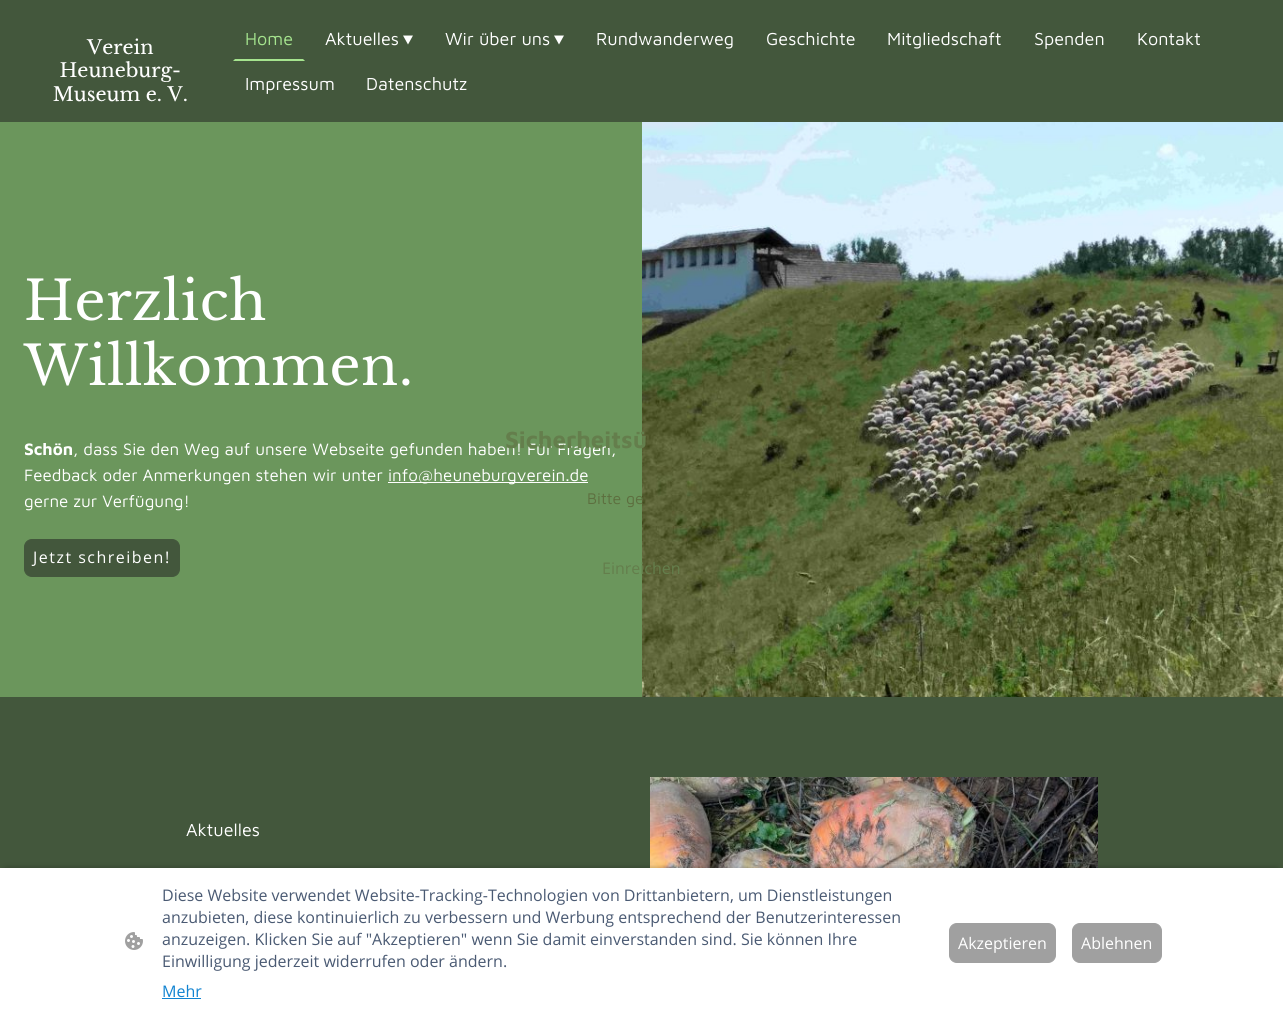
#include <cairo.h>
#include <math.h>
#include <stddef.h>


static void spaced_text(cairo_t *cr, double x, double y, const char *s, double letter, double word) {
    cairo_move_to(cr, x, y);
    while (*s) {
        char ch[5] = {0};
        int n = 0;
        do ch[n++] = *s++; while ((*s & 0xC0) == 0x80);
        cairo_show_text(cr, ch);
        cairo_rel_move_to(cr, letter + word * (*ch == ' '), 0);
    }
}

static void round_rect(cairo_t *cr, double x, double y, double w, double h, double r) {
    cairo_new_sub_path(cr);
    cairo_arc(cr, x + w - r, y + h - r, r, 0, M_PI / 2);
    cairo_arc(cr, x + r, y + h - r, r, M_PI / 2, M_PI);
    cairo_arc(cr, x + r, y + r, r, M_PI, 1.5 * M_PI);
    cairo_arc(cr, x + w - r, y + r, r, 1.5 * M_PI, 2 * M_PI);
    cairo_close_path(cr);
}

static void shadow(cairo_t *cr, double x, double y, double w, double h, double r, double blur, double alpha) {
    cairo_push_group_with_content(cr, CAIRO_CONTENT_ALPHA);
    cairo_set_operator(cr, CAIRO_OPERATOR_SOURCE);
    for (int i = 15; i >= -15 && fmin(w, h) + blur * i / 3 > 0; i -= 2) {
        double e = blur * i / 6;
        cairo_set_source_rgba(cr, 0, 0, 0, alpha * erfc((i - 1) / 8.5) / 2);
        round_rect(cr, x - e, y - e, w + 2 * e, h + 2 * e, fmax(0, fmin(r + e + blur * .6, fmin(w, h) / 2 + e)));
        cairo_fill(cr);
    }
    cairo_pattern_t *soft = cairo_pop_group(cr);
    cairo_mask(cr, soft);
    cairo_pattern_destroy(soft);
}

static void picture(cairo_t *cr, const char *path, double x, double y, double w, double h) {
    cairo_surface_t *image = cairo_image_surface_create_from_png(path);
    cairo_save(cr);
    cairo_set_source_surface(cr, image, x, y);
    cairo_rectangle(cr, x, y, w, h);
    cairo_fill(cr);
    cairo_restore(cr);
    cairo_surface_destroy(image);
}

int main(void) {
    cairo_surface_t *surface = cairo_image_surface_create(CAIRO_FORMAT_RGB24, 1283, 1018);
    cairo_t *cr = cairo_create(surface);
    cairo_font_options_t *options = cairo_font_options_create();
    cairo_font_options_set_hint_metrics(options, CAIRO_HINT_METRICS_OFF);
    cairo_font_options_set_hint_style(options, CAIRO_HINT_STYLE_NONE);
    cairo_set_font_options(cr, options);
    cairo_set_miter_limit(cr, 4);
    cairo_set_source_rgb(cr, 0.42, 0.588, 0.361);
    cairo_paint(cr);
    cairo_set_source_rgb(cr, 0.263, 0.341, 0.235);
    cairo_rectangle(cr, 0, 0, 1283, 122);
    cairo_fill(cr);
    picture(cr, "img1.png", 53, 38, 134, 64);
    cairo_set_source_rgb(cr, 0.647, 0.894, 0.557);
    cairo_new_path(cr);
    cairo_move_to(cr, 305, 61);
    cairo_line_to(cr, 233, 61);
    cairo_line_to(cr, 235, 59);
    cairo_line_to(cr, 303, 59);
    cairo_close_path(cr);
    cairo_fill(cr);
    cairo_select_font_face(cr, "Maven Pro", CAIRO_FONT_SLANT_NORMAL, CAIRO_FONT_WEIGHT_NORMAL);
    cairo_set_font_size(cr, 18);
    cairo_move_to(cr, 245, 45);
    cairo_show_text(cr, "Home");
    cairo_set_source_rgb(cr, 1, 1, 1);
    cairo_move_to(cr, 325, 45);
    cairo_show_text(cr, "Aktuelles");
    cairo_new_path(cr);
    cairo_move_to(cr, 413, 35.5);
    cairo_line_to(cr, 408, 44.5);
    cairo_line_to(cr, 403, 35.5);
    cairo_close_path(cr);
    cairo_fill(cr);
    cairo_move_to(cr, 445, 45);
    cairo_show_text(cr, "Wir über uns");
    cairo_new_path(cr);
    cairo_move_to(cr, 564, 35.5);
    cairo_line_to(cr, 559, 44.5);
    cairo_line_to(cr, 554, 35.5);
    cairo_close_path(cr);
    cairo_fill(cr);
    cairo_move_to(cr, 596, 45);
    cairo_show_text(cr, "Rundwanderweg");
    cairo_move_to(cr, 766, 45);
    cairo_show_text(cr, "Geschichte");
    cairo_move_to(cr, 887, 45);
    cairo_show_text(cr, "Mitgliedschaft");
    cairo_move_to(cr, 1034, 45);
    cairo_show_text(cr, "Spenden");
    cairo_move_to(cr, 1137, 45);
    cairo_show_text(cr, "Kontakt");
    cairo_move_to(cr, 245, 90);
    cairo_show_text(cr, "Impressum");
    cairo_move_to(cr, 366, 90);
    cairo_show_text(cr, "Datenschutz");
    cairo_select_font_face(cr, "Libre Baskerville", CAIRO_FONT_SLANT_NORMAL, CAIRO_FONT_WEIGHT_NORMAL);
    cairo_set_font_size(cr, 54);
    spaced_text(cr, 24, 320, "Herzlich", 0.5, 0);
    spaced_text(cr, 24, 385, "Willkommen.", 0.5, 0);
    cairo_select_font_face(cr, "Maven Pro", CAIRO_FONT_SLANT_NORMAL, CAIRO_FONT_WEIGHT_BOLD);
    cairo_set_font_size(cr, 17);
    cairo_move_to(cr, 24, 455);
    cairo_show_text(cr, "Schön");
    cairo_select_font_face(cr, "Maven Pro", CAIRO_FONT_SLANT_NORMAL, CAIRO_FONT_WEIGHT_NORMAL);
    cairo_move_to(cr, 73, 455);
    cairo_show_text(cr, ", dass Sie den Weg auf unsere Webseite gefunden haben! Für Fragen,");
    cairo_move_to(cr, 24, 481);
    cairo_show_text(cr, "Feedback oder Anmerkungen stehen wir unter");
    cairo_rectangle(cr, 388, 482, 200, 1);
    cairo_fill(cr);
    cairo_move_to(cr, 388, 481);
    cairo_show_text(cr, "info@heuneburgverein.de");
    cairo_move_to(cr, 24, 507);
    cairo_show_text(cr, "gerne zur Verfügung!");
    cairo_set_source_rgb(cr, 0.263, 0.341, 0.235);
    round_rect(cr, 24.5, 539.5, 155, 37, 7.5);
    cairo_fill_preserve(cr);
    cairo_set_line_width(cr, 1);
    cairo_stroke(cr);
    cairo_select_font_face(cr, "Open Sans", CAIRO_FONT_SLANT_NORMAL, CAIRO_FONT_WEIGHT_NORMAL);
    cairo_set_font_size(cr, 16);
    cairo_set_source_rgb(cr, 1, 1, 1);
    spaced_text(cr, 33, 563, "Jetzt schreiben!", 1.5, 0);
    picture(cr, "img2.png", 642, 122, 641, 575);
    cairo_set_source_rgb(cr, 0.263, 0.341, 0.235);
    cairo_rectangle(cr, 0, 697, 1283, 171);
    cairo_fill(cr);
    cairo_select_font_face(cr, "Maven Pro", CAIRO_FONT_SLANT_NORMAL, CAIRO_FONT_WEIGHT_NORMAL);
    cairo_set_font_size(cr, 18);
    cairo_set_source_rgb(cr, 1, 1, 1);
    cairo_move_to(cr, 186, 836);
    cairo_show_text(cr, "Aktuelles");
    picture(cr, "img3.png", 650, 777, 448, 91);
    cairo_select_font_face(cr, "Maven Pro", CAIRO_FONT_SLANT_NORMAL, CAIRO_FONT_WEIGHT_BOLD);
    cairo_set_font_size(cr, 24);
    cairo_set_source_rgb(cr, 0.392, 0.494, 0.298);
    cairo_move_to(cr, 505, 448);
    cairo_show_text(cr, "Sicherheitsü");
    cairo_select_font_face(cr, "Maven Pro", CAIRO_FONT_SLANT_NORMAL, CAIRO_FONT_WEIGHT_NORMAL);
    cairo_set_font_size(cr, 16);
    cairo_set_source_rgb(cr, 0.365, 0.435, 0.247);
    cairo_move_to(cr, 587, 504);
    cairo_show_text(cr, "Bitte ge");
    cairo_select_font_face(cr, "Open Sans", CAIRO_FONT_SLANT_NORMAL, CAIRO_FONT_WEIGHT_NORMAL);
    cairo_set_source_rgb(cr, 0.392, 0.494, 0.298);
    cairo_move_to(cr, 602, 574);
    cairo_show_text(cr, "Einreichen");
    cairo_set_source_rgb(cr, 0, 0, 0);
    shadow(cr, 6, 871, 1271, 138, 0, 4, 0.63);
    cairo_set_source_rgb(cr, 1, 1, 1);
    cairo_rectangle(cr, 0, 868, 1283, 150);
    cairo_fill(cr);
    picture(cr, "img4.png", 125, 932, 18, 18);
    cairo_set_source_rgb(cr, 0.29, 0.353, 0.451);
    cairo_move_to(cr, 162, 901);
    cairo_show_text(cr, "Diese Website verwendet Website-Tracking-Technologien von Drittanbietern, um Dienstleistungen");
    cairo_move_to(cr, 162, 923);
    cairo_show_text(cr, "anzubieten, diese kontinuierlich zu verbessern und Werbung entsprechend der Benutzerinteressen");
    cairo_move_to(cr, 162, 945);
    cairo_show_text(cr, "anzuzeigen. Klicken Sie auf \"Akzeptieren\" wenn Sie damit einverstanden sind. Sie können Ihre");
    cairo_move_to(cr, 162, 967);
    cairo_show_text(cr, "Einwilligung jederzeit widerrufen oder ändern.");
    cairo_set_source_rgb(cr, 0.067, 0.514, 0.82);
    cairo_move_to(cr, 162, 997);
    cairo_show_text(cr, "Mehr");
    cairo_rectangle(cr, 162, 998, 39, 1);
    cairo_fill(cr);
    cairo_set_source_rgb(cr, 0.627, 0.627, 0.627);
    round_rect(cr, 949.5, 923.5, 106, 39, 7.5);
    cairo_fill_preserve(cr);
    cairo_stroke(cr);
    cairo_set_source_rgb(cr, 1, 1, 1);
    cairo_move_to(cr, 958, 949);
    cairo_show_text(cr, "Akzeptieren");
    cairo_set_source_rgb(cr, 0.627, 0.627, 0.627);
    round_rect(cr, 1072.5, 923.5, 89, 39, 7.5);
    cairo_fill_preserve(cr);
    cairo_stroke(cr);
    cairo_set_source_rgb(cr, 1, 1, 1);
    cairo_move_to(cr, 1081, 949);
    cairo_show_text(cr, "Ablehnen");
    cairo_surface_write_to_png(surface, "page.png");
    cairo_font_options_destroy(options);
    cairo_destroy(cr);
    cairo_surface_destroy(surface);
    return 0;
}
